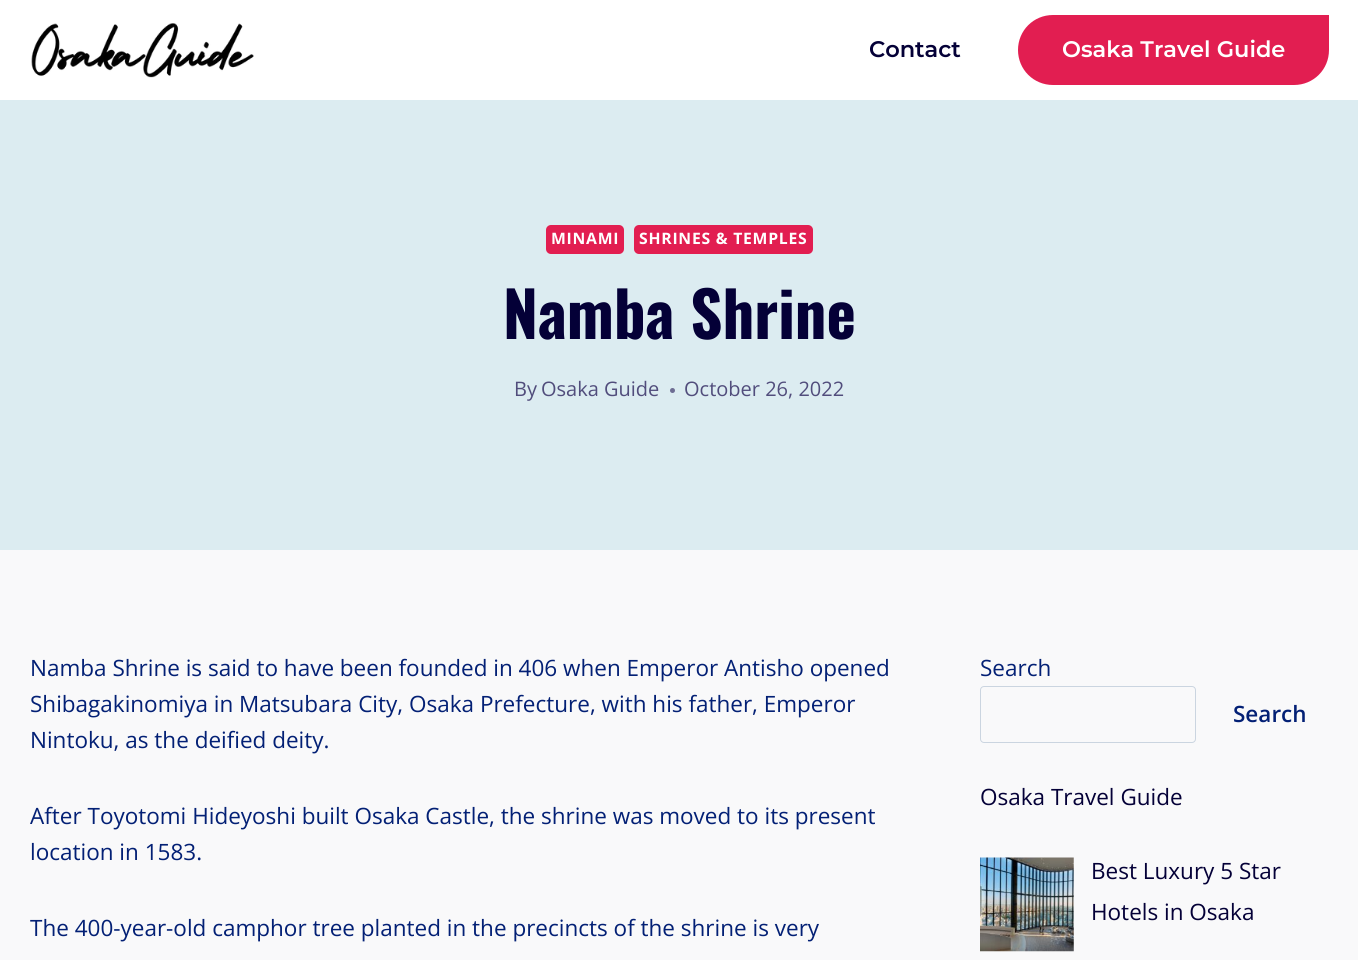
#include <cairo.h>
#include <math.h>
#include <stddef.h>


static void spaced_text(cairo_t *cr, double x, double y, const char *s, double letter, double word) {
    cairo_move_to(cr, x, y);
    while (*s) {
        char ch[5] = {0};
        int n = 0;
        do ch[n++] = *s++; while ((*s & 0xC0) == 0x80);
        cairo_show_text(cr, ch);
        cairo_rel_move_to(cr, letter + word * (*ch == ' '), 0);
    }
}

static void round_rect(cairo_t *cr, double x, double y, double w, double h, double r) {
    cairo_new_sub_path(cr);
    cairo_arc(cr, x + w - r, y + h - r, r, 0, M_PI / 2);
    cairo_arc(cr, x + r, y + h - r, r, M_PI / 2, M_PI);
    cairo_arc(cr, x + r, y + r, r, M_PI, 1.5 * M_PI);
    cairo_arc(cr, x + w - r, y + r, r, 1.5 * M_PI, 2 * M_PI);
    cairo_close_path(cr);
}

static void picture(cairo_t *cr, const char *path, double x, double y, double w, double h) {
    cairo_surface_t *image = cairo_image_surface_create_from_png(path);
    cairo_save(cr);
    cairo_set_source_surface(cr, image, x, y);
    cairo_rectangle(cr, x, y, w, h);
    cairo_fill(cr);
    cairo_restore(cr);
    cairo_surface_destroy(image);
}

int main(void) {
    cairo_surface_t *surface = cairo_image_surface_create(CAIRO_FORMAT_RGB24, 1358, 960);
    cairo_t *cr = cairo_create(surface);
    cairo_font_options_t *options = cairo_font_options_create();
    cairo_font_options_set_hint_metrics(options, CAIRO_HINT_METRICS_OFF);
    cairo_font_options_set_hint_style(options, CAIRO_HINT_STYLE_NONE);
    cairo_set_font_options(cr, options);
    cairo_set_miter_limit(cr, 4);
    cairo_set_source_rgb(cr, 0.973, 0.976, 0.98);
    cairo_paint(cr);
    cairo_set_source_rgb(cr, 1, 1, 1);
    cairo_rectangle(cr, 0, 0, 1358, 100);
    cairo_fill(cr);
    picture(cr, "img1.png", 31, 23, 223, 55);
    cairo_select_font_face(cr, "Montserrat Thin", CAIRO_FONT_SLANT_NORMAL, CAIRO_FONT_WEIGHT_NORMAL);
    cairo_set_font_size(cr, 22.5);
    cairo_set_source_rgb(cr, 0.016, 0, 0.216);
    cairo_move_to(cr, 869, 57);
    cairo_show_text(cr, "Contact");
    cairo_set_source_rgb(cr, 0.886, 0.118, 0.318);
    cairo_new_path(cr);
    cairo_move_to(cr, 1053, 15);
    cairo_line_to(cr, 1329, 15);
    cairo_line_to(cr, 1329, 50);
    cairo_curve_to(cr, 1329, 69.5, 1313.5, 85, 1294, 85);
    cairo_line_to(cr, 1053, 85);
    cairo_curve_to(cr, 1033.5, 85, 1018, 69.5, 1018, 50);
    cairo_curve_to(cr, 1018, 30.5, 1033.5, 15, 1053, 15);
    cairo_close_path(cr);
    cairo_fill(cr);
    cairo_set_source_rgb(cr, 1, 1, 1);
    cairo_move_to(cr, 1062, 57);
    cairo_show_text(cr, "Osaka Travel Guide");
    cairo_set_source_rgb(cr, 0.863, 0.922, 0.945);
    cairo_rectangle(cr, 0, 100, 1358, 450);
    cairo_fill(cr);
    cairo_set_source_rgb(cr, 0.886, 0.118, 0.318);
    round_rect(cr, 546, 225, 78, 29, 5);
    cairo_fill(cr);
    cairo_select_font_face(cr, "Open Sans", CAIRO_FONT_SLANT_NORMAL, CAIRO_FONT_WEIGHT_BOLD);
    cairo_set_font_size(cr, 15.75);
    cairo_set_source_rgb(cr, 1, 1, 1);
    spaced_text(cr, 551, 244, "MINAMI", 0.75, 0);
    cairo_set_source_rgb(cr, 0.886, 0.118, 0.318);
    round_rect(cr, 634, 225, 179, 29, 5);
    cairo_fill(cr);
    cairo_set_source_rgb(cr, 1, 1, 1);
    spaced_text(cr, 639, 244, "SHRINES & TEMPLES", 0.75, 0);
    cairo_select_font_face(cr, "Oswald", CAIRO_FONT_SLANT_NORMAL, CAIRO_FONT_WEIGHT_BOLD);
    cairo_set_font_size(cr, 62.5);
    cairo_set_source_rgb(cr, 0.016, 0, 0.216);
    cairo_move_to(cr, 503, 339);
    cairo_show_text(cr, "Namba Shrine");
    cairo_select_font_face(cr, "Open Sans", CAIRO_FONT_SLANT_NORMAL, CAIRO_FONT_WEIGHT_NORMAL);
    cairo_set_font_size(cr, 20);
    cairo_set_source_rgb(cr, 0.318, 0.302, 0.486);
    cairo_move_to(cr, 514, 396);
    cairo_show_text(cr, "By");
    cairo_move_to(cr, 541, 396);
    cairo_show_text(cr, "Osaka Guide");
    cairo_set_source_rgb(cr, 0.427, 0.427, 0.576);
    cairo_new_path(cr);
    cairo_arc(cr, 672.5, 390.5, 2.5, 0, 2 * M_PI);
    cairo_fill(cr);
    cairo_set_source_rgb(cr, 0.318, 0.302, 0.486);
    cairo_move_to(cr, 684, 396);
    cairo_show_text(cr, "October 26, 2022");
    cairo_set_font_size(cr, 22.5);
    cairo_set_source_rgb(cr, 0.012, 0.125, 0.459);
    cairo_move_to(cr, 30, 676);
    cairo_show_text(cr, "Namba Shrine is said to have been founded in 406 when Emperor Antisho opened");
    cairo_move_to(cr, 30, 712);
    cairo_show_text(cr, "Shibagakinomiya in Matsubara City, Osaka Prefecture, with his father, Emperor");
    cairo_move_to(cr, 30, 748);
    cairo_show_text(cr, "Nintoku, as the deified deity.");
    cairo_move_to(cr, 30, 824);
    cairo_show_text(cr, "After Toyotomi Hideyoshi built Osaka Castle, the shrine was moved to its present");
    cairo_move_to(cr, 30, 860);
    cairo_show_text(cr, "location in 1583.");
    cairo_move_to(cr, 30, 936);
    cairo_show_text(cr, "The 400-year-old camphor tree planted in the precincts of the shrine is very");
    cairo_move_to(cr, 980, 676);
    cairo_show_text(cr, "Search");
    round_rect(cr, 980.5, 686.5, 215, 56, 3.5);
    cairo_set_source_rgb(cr, 0.796, 0.835, 0.878);
    cairo_set_line_width(cr, 1);
    cairo_stroke(cr);
    cairo_select_font_face(cr, "Open Sans SemiBold", CAIRO_FONT_SLANT_NORMAL, CAIRO_FONT_WEIGHT_NORMAL);
    cairo_set_source_rgb(cr, 0.012, 0.125, 0.459);
    cairo_move_to(cr, 1233, 722);
    cairo_show_text(cr, "Search");
    cairo_select_font_face(cr, "Open Sans", CAIRO_FONT_SLANT_NORMAL, CAIRO_FONT_WEIGHT_NORMAL);
    cairo_set_source_rgb(cr, 0.016, 0, 0.216);
    cairo_move_to(cr, 980, 805);
    cairo_show_text(cr, "Osaka Travel Guide");
    picture(cr, "img2.png", 980, 857, 94, 95);
    cairo_move_to(cr, 1091, 879);
    cairo_show_text(cr, "Best Luxury 5 Star");
    cairo_move_to(cr, 1091, 920);
    cairo_show_text(cr, "Hotels in Osaka");
    cairo_surface_write_to_png(surface, "page.png");
    cairo_font_options_destroy(options);
    cairo_destroy(cr);
    cairo_surface_destroy(surface);
    return 0;
}
